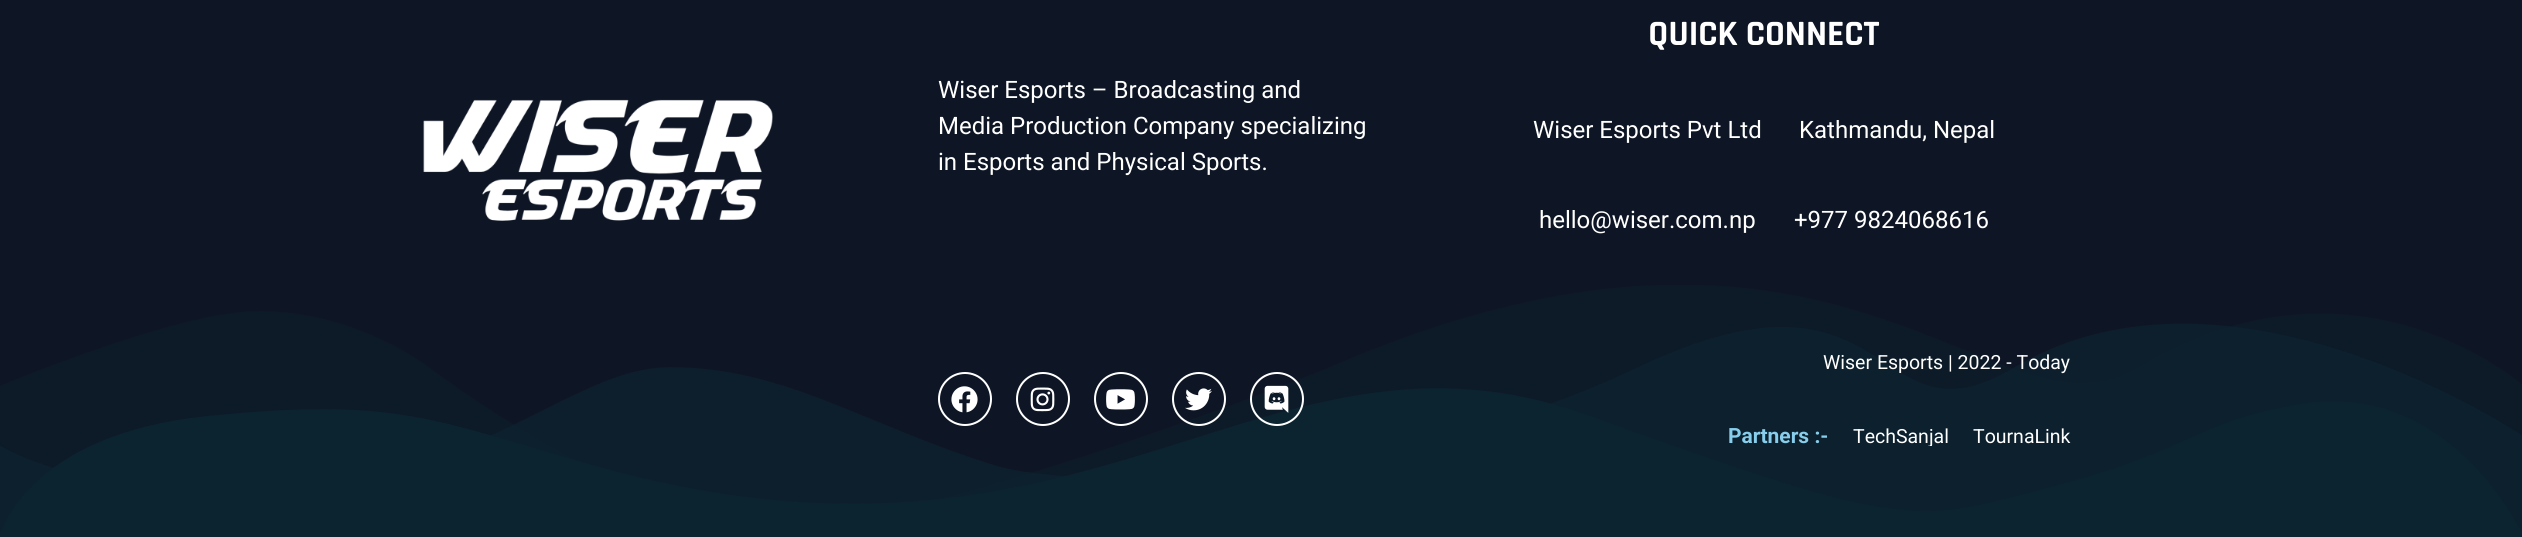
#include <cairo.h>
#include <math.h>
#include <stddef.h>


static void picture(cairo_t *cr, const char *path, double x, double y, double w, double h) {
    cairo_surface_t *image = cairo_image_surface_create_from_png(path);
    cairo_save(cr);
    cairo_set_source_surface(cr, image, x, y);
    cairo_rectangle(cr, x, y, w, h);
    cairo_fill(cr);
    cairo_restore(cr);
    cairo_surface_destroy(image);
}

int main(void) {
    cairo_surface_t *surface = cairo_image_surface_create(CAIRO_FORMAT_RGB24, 2522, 537);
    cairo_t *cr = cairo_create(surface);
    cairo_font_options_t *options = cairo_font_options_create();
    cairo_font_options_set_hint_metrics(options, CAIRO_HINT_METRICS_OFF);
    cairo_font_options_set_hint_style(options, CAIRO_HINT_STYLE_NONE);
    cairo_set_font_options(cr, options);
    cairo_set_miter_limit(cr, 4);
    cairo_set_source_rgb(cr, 0.055, 0.086, 0.145);
    cairo_paint(cr);
    picture(cr, "img1.png", 423, 99, 350, 122);
    cairo_select_font_face(cr, "Roboto", CAIRO_FONT_SLANT_NORMAL, CAIRO_FONT_WEIGHT_NORMAL);
    cairo_set_font_size(cr, 24);
    cairo_set_source_rgb(cr, 1, 1, 1);
    cairo_move_to(cr, 938, 98);
    cairo_show_text(cr, "Wiser Esports – Broadcasting and");
    cairo_move_to(cr, 938, 134);
    cairo_show_text(cr, "Media Production Company specializing");
    cairo_move_to(cr, 938, 170);
    cairo_show_text(cr, "in Esports and Physical Sports.");
    cairo_select_font_face(cr, "Rajdhani", CAIRO_FONT_SLANT_NORMAL, CAIRO_FONT_WEIGHT_BOLD);
    cairo_set_font_size(cr, 36);
    cairo_move_to(cr, 1648, 45);
    cairo_show_text(cr, "QUICK CONNECT");
    cairo_select_font_face(cr, "Roboto", CAIRO_FONT_SLANT_NORMAL, CAIRO_FONT_WEIGHT_NORMAL);
    cairo_set_font_size(cr, 24);
    cairo_move_to(cr, 1533, 138);
    cairo_show_text(cr, "Wiser Esports Pvt Ltd");
    cairo_move_to(cr, 1799, 138);
    cairo_show_text(cr, "Kathmandu, Nepal");
    cairo_move_to(cr, 1539, 228);
    cairo_show_text(cr, "hello@wiser.com.np");
    cairo_move_to(cr, 1794, 228);
    cairo_show_text(cr, "+977 9824068616");
    picture(cr, "img7.png", 0, 285, 2522, 252);
    cairo_arc(cr, 965, 399, 26, 0, 2 * M_PI);
    cairo_stroke(cr);
    picture(cr, "img2.png", 951, 386, 27, 27);
    cairo_arc(cr, 1043, 399, 26, 0, 2 * M_PI);
    cairo_stroke(cr);
    picture(cr, "img3.png", 1030, 387, 25, 25);
    cairo_arc(cr, 1121, 399, 26, 0, 2 * M_PI);
    cairo_stroke(cr);
    picture(cr, "img4.png", 1106, 389, 29, 21);
    cairo_arc(cr, 1199, 399, 26, 0, 2 * M_PI);
    cairo_stroke(cr);
    picture(cr, "img5.png", 1185, 388, 27, 23);
    cairo_arc(cr, 1277, 399, 26, 0, 2 * M_PI);
    cairo_stroke(cr);
    picture(cr, "img6.png", 1264, 385, 25, 28);
    cairo_set_font_size(cr, 19.5);
    cairo_move_to(cr, 1823, 369);
    cairo_show_text(cr, "Wiser Esports | 2022 - Today");
    cairo_select_font_face(cr, "Roboto", CAIRO_FONT_SLANT_NORMAL, CAIRO_FONT_WEIGHT_BOLD);
    cairo_set_font_size(cr, 21);
    cairo_set_source_rgb(cr, 0.529, 0.808, 0.922);
    cairo_move_to(cr, 1728, 443);
    cairo_show_text(cr, "Partners :-");
    cairo_save(cr);
    cairo_rectangle(cr, 1451, 426, 619, 20);
    cairo_clip(cr);
    cairo_select_font_face(cr, "Roboto", CAIRO_FONT_SLANT_NORMAL, CAIRO_FONT_WEIGHT_NORMAL);
    cairo_set_font_size(cr, 19.5);
    cairo_set_source_rgb(cr, 1, 1, 1);
    cairo_move_to(cr, 1853, 443);
    cairo_show_text(cr, "TechSanjal");
    cairo_restore(cr);
    cairo_select_font_face(cr, "Roboto", CAIRO_FONT_SLANT_NORMAL, CAIRO_FONT_WEIGHT_NORMAL);
    cairo_set_font_size(cr, 19.5);
    cairo_set_source_rgb(cr, 1, 1, 1);
    cairo_move_to(cr, 1973, 443);
    cairo_show_text(cr, "TournaLink");
    cairo_surface_write_to_png(surface, "page.png");
    cairo_font_options_destroy(options);
    cairo_destroy(cr);
    cairo_surface_destroy(surface);
    return 0;
}
